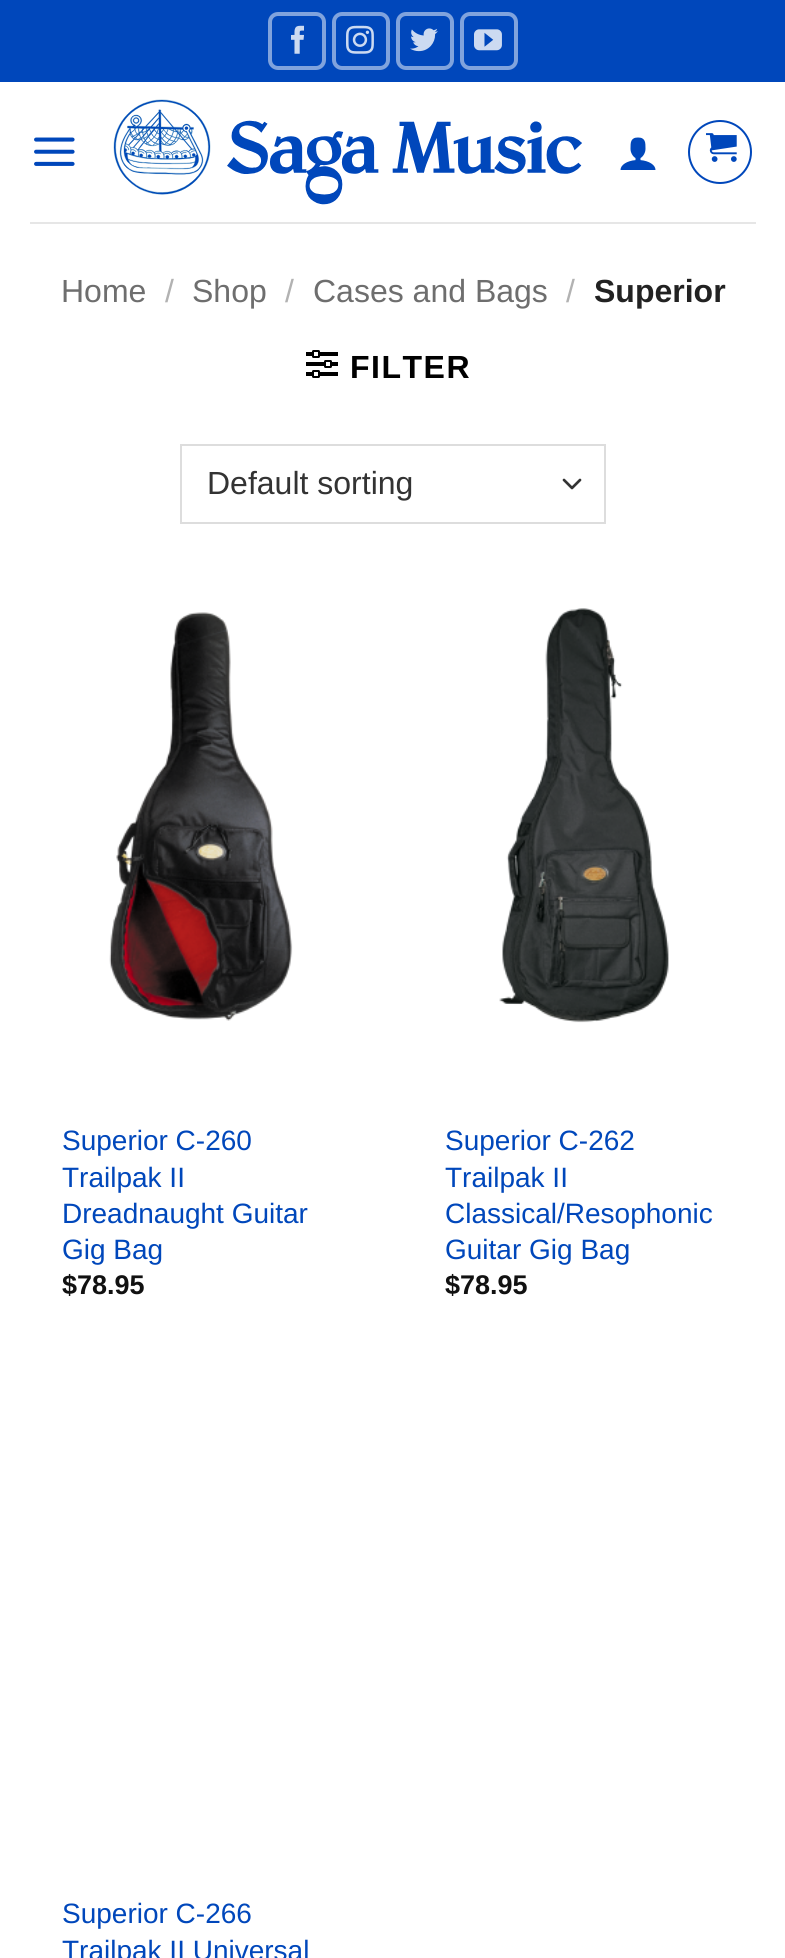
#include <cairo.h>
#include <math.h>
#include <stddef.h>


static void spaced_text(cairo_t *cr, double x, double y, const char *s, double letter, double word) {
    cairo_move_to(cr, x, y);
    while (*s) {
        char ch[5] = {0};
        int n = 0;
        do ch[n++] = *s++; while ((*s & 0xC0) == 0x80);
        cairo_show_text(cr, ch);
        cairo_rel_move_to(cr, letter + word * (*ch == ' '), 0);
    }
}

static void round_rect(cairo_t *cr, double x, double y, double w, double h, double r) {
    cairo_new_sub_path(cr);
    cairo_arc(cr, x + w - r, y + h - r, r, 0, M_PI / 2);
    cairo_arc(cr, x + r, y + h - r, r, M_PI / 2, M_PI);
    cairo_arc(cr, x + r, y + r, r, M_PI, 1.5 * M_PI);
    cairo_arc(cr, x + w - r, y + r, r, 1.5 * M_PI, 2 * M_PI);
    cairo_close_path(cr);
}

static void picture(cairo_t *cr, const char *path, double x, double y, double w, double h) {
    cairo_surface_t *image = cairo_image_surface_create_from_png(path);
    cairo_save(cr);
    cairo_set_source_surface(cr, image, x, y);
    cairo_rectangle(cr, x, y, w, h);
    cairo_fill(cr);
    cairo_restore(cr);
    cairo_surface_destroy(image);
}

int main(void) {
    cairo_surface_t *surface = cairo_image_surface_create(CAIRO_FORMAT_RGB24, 785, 1958);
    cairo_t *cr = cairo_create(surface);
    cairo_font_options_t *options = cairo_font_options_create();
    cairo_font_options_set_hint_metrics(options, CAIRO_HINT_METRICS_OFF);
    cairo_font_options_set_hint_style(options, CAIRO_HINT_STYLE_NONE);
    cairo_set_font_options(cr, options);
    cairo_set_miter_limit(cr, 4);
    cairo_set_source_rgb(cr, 1, 1, 1);
    cairo_paint(cr);
    cairo_set_source_rgb(cr, 0, 0.278, 0.733);
    cairo_rectangle(cr, 0, 0, 785, 82);
    cairo_fill(cr);
    round_rect(cr, 270, 14, 54, 54, 8);
    cairo_set_source_rgb(cr, 0.502, 0.639, 0.867);
    cairo_set_line_width(cr, 4);
    cairo_stroke(cr);
    picture(cr, "img1.png", 291, 25, 13, 29);
    round_rect(cr, 334, 14, 54, 54, 8);
    cairo_stroke(cr);
    picture(cr, "img2.png", 346, 25, 28, 29);
    round_rect(cr, 398, 14, 54, 54, 8);
    cairo_stroke(cr);
    picture(cr, "img3.png", 410, 28, 28, 24);
    round_rect(cr, 462, 14, 54, 54, 8);
    cairo_stroke(cr);
    picture(cr, "img4.png", 474, 29, 28, 22);
    picture(cr, "img5.png", 34, 137, 41, 29);
    picture(cr, "img6.png", 113, 99, 469, 106);
    picture(cr, "img7.png", 620, 137, 36, 33);
    cairo_arc(cr, 720, 152, 31, 0, 2 * M_PI);
    cairo_set_source_rgb(cr, 0, 0.278, 0.733);
    cairo_set_line_width(cr, 2);
    cairo_stroke(cr);
    picture(cr, "img8.png", 706, 133, 31, 29);
    cairo_set_source_rgb(cr, 0.902, 0.902, 0.902);
    cairo_rectangle(cr, 30, 222, 726, 2);
    cairo_fill(cr);
    cairo_select_font_face(cr, "Liberation Sans", CAIRO_FONT_SLANT_NORMAL, CAIRO_FONT_WEIGHT_NORMAL);
    cairo_set_font_size(cr, 32);
    cairo_set_source_rgb(cr, 0.431, 0.431, 0.431);
    cairo_move_to(cr, 61, 302);
    cairo_show_text(cr, "Home");
    cairo_set_source_rgb(cr, 0.698, 0.698, 0.698);
    cairo_move_to(cr, 165, 302);
    cairo_show_text(cr, "/");
    cairo_set_source_rgb(cr, 0.431, 0.431, 0.431);
    cairo_move_to(cr, 192, 302);
    cairo_show_text(cr, "Shop");
    cairo_set_source_rgb(cr, 0.698, 0.698, 0.698);
    cairo_move_to(cr, 285, 302);
    cairo_show_text(cr, "/");
    cairo_set_source_rgb(cr, 0.431, 0.431, 0.431);
    cairo_move_to(cr, 313, 302);
    cairo_show_text(cr, "Cases and Bags");
    cairo_set_source_rgb(cr, 0.698, 0.698, 0.698);
    cairo_move_to(cr, 566, 302);
    cairo_show_text(cr, "/");
    cairo_select_font_face(cr, "Liberation Sans", CAIRO_FONT_SLANT_NORMAL, CAIRO_FONT_WEIGHT_BOLD);
    cairo_set_source_rgb(cr, 0.133, 0.133, 0.133);
    cairo_move_to(cr, 594, 302);
    cairo_show_text(cr, "Superior");
    picture(cr, "img9.png", 306, 350, 32, 28);
    cairo_set_source_rgb(cr, 0, 0, 0);
    spaced_text(cr, 350, 378, "FILTER", 1.5, 0);
    cairo_new_path(cr);
    cairo_move_to(cr, 564, 480);
    cairo_line_to(cr, 572, 488);
    cairo_line_to(cr, 580, 480);
    cairo_set_source_rgb(cr, 0.2, 0.2, 0.2);
    cairo_set_line_width(cr, 2.7);
    cairo_set_line_cap(cr, CAIRO_LINE_CAP_ROUND);
    cairo_set_line_join(cr, CAIRO_LINE_JOIN_ROUND);
    cairo_stroke(cr);
    cairo_rectangle(cr, 181, 445, 424, 78);
    cairo_set_source_rgb(cr, 0.867, 0.867, 0.867);
    cairo_set_line_width(cr, 2);
    cairo_set_line_cap(cr, CAIRO_LINE_CAP_BUTT);
    cairo_set_line_join(cr, CAIRO_LINE_JOIN_MITER);
    cairo_stroke(cr);
    cairo_select_font_face(cr, "Liberation Sans", CAIRO_FONT_SLANT_NORMAL, CAIRO_FONT_WEIGHT_NORMAL);
    cairo_set_source_rgb(cr, 0.2, 0.2, 0.2);
    cairo_move_to(cr, 207, 494);
    cairo_show_text(cr, "Default sorting");
    picture(cr, "img10.png", 109, 612, 184, 409);
    cairo_set_font_size(cr, 28);
    cairo_set_source_rgb(cr, 0, 0.278, 0.733);
    cairo_move_to(cr, 62, 1150);
    cairo_show_text(cr, "Superior C-260");
    cairo_move_to(cr, 62, 1187);
    cairo_show_text(cr, "Trailpak II");
    cairo_move_to(cr, 62, 1223);
    cairo_show_text(cr, "Dreadnaught Guitar");
    cairo_move_to(cr, 62, 1259);
    cairo_show_text(cr, "Gig Bag");
    cairo_select_font_face(cr, "Liberation Sans", CAIRO_FONT_SLANT_NORMAL, CAIRO_FONT_WEIGHT_BOLD);
    cairo_set_font_size(cr, 27);
    cairo_set_source_rgb(cr, 0.067, 0.067, 0.067);
    cairo_move_to(cr, 62, 1294);
    cairo_show_text(cr, "$78.95");
    picture(cr, "img11.png", 499, 608, 170, 415);
    cairo_select_font_face(cr, "Liberation Sans", CAIRO_FONT_SLANT_NORMAL, CAIRO_FONT_WEIGHT_NORMAL);
    cairo_set_font_size(cr, 28);
    cairo_set_source_rgb(cr, 0, 0.278, 0.733);
    cairo_move_to(cr, 445, 1150);
    cairo_show_text(cr, "Superior C-262");
    cairo_move_to(cr, 445, 1187);
    cairo_show_text(cr, "Trailpak II");
    cairo_move_to(cr, 445, 1223);
    cairo_show_text(cr, "Classical/Resophonic");
    cairo_move_to(cr, 445, 1259);
    cairo_show_text(cr, "Guitar Gig Bag");
    cairo_select_font_face(cr, "Liberation Sans", CAIRO_FONT_SLANT_NORMAL, CAIRO_FONT_WEIGHT_BOLD);
    cairo_set_font_size(cr, 27);
    cairo_set_source_rgb(cr, 0.067, 0.067, 0.067);
    cairo_move_to(cr, 445, 1294);
    cairo_show_text(cr, "$78.95");
    cairo_select_font_face(cr, "Liberation Sans", CAIRO_FONT_SLANT_NORMAL, CAIRO_FONT_WEIGHT_NORMAL);
    cairo_set_font_size(cr, 28);
    cairo_set_source_rgb(cr, 0, 0.278, 0.733);
    cairo_move_to(cr, 62, 1923);
    cairo_show_text(cr, "Superior C-266");
    cairo_move_to(cr, 62, 1960);
    cairo_show_text(cr, "Trailpak II Universal");
    cairo_surface_write_to_png(surface, "page.png");
    cairo_font_options_destroy(options);
    cairo_destroy(cr);
    cairo_surface_destroy(surface);
    return 0;
}
